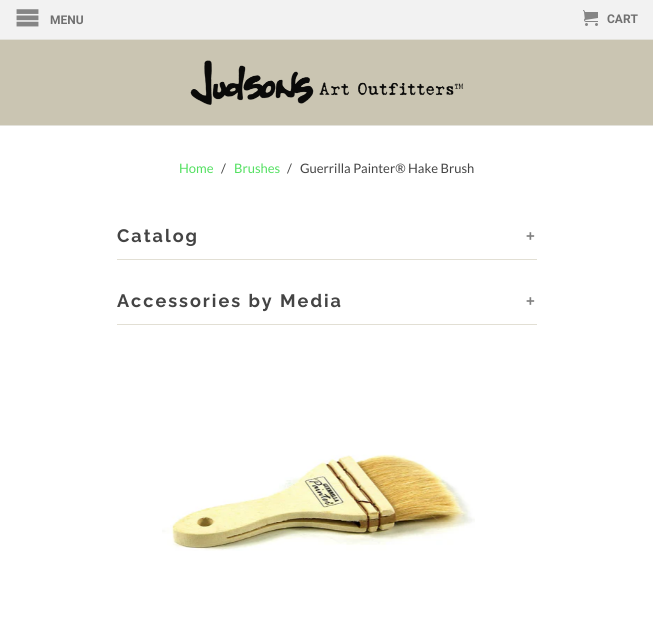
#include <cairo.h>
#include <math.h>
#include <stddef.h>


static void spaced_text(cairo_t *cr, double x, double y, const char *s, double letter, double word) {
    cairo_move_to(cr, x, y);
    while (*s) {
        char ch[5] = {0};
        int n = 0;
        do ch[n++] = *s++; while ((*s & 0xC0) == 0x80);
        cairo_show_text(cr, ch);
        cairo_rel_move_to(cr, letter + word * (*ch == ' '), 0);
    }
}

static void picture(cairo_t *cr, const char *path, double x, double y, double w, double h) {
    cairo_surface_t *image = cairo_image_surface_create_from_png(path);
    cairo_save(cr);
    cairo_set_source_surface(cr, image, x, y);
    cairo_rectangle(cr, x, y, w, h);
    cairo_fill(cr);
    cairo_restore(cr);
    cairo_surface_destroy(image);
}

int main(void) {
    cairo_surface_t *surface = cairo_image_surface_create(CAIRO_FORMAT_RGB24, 653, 617);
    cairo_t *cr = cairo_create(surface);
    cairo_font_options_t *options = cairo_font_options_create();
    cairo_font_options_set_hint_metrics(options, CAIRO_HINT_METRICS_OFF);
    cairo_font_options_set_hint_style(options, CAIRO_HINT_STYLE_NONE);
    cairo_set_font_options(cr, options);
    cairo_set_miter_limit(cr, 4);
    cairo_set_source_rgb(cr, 1, 1, 1);
    cairo_paint(cr);
    cairo_set_source_rgb(cr, 0.949, 0.949, 0.949);
    cairo_rectangle(cr, 0, 0, 653, 39);
    cairo_fill(cr);
    cairo_set_source_rgb(cr, 0.89, 0.886, 0.859);
    cairo_rectangle(cr, 0, 39, 653, 1);
    cairo_fill(cr);
    picture(cr, "img1.png", 16, 9, 23, 18);
    cairo_select_font_face(cr, "Roboto", CAIRO_FONT_SLANT_NORMAL, CAIRO_FONT_WEIGHT_BOLD);
    cairo_set_font_size(cr, 12);
    cairo_set_source_rgb(cr, 0.439, 0.439, 0.439);
    cairo_move_to(cr, 50, 24);
    cairo_show_text(cr, "MENU");
    picture(cr, "img2.png", 583, 10, 15, 16);
    cairo_move_to(cr, 607, 23);
    cairo_show_text(cr, "CART");
    cairo_set_source_rgb(cr, 0.792, 0.773, 0.698);
    cairo_rectangle(cr, 0, 40, 653, 85);
    cairo_fill(cr);
    cairo_set_source_rgb(cr, 0.89, 0.886, 0.859);
    cairo_rectangle(cr, 0, 125, 653, 1);
    cairo_fill(cr);
    picture(cr, "img3.png", 190, 60, 274, 45);
    cairo_select_font_face(cr, "Lato", CAIRO_FONT_SLANT_NORMAL, CAIRO_FONT_WEIGHT_NORMAL);
    cairo_set_font_size(cr, 13);
    cairo_set_source_rgb(cr, 0.325, 0.878, 0.38);
    cairo_move_to(cr, 179, 173);
    cairo_show_text(cr, "Home");
    cairo_set_source_rgb(cr, 0.267, 0.267, 0.267);
    cairo_move_to(cr, 221, 173);
    cairo_show_text(cr, "/");
    cairo_set_source_rgb(cr, 0.325, 0.878, 0.38);
    cairo_move_to(cr, 234, 173);
    cairo_show_text(cr, "Brushes");
    cairo_set_source_rgb(cr, 0.267, 0.267, 0.267);
    cairo_move_to(cr, 287, 173);
    cairo_show_text(cr, "/");
    cairo_move_to(cr, 300, 173);
    cairo_show_text(cr, "Guerrilla Painter® Hake Brush");
    cairo_set_source_rgb(cr, 0.886, 0.875, 0.831);
    cairo_rectangle(cr, 117, 259, 420, 1);
    cairo_fill(cr);
    cairo_select_font_face(cr, "Raleway", CAIRO_FONT_SLANT_NORMAL, CAIRO_FONT_WEIGHT_BOLD);
    cairo_set_font_size(cr, 18);
    cairo_set_source_rgb(cr, 0.267, 0.267, 0.267);
    spaced_text(cr, 117, 242, "Catalog", 2, 0);
    cairo_select_font_face(cr, "Liberation Sans", CAIRO_FONT_SLANT_NORMAL, CAIRO_FONT_WEIGHT_BOLD);
    cairo_set_font_size(cr, 15);
    cairo_set_source_rgb(cr, 0.502, 0.502, 0.502);
    spaced_text(cr, 526, 241, "+", 2, 0);
    cairo_set_source_rgb(cr, 0.886, 0.875, 0.831);
    cairo_rectangle(cr, 117, 324, 420, 1);
    cairo_fill(cr);
    cairo_select_font_face(cr, "Raleway", CAIRO_FONT_SLANT_NORMAL, CAIRO_FONT_WEIGHT_BOLD);
    cairo_set_font_size(cr, 18);
    cairo_set_source_rgb(cr, 0.267, 0.267, 0.267);
    spaced_text(cr, 117, 307, "Accessories by Media", 2, 0);
    cairo_select_font_face(cr, "Liberation Sans", CAIRO_FONT_SLANT_NORMAL, CAIRO_FONT_WEIGHT_BOLD);
    cairo_set_font_size(cr, 15);
    cairo_set_source_rgb(cr, 0.502, 0.502, 0.502);
    spaced_text(cr, 526, 306, "+", 2, 0);
    picture(cr, "img4.png", 162, 454, 313, 97);
    cairo_surface_write_to_png(surface, "page.png");
    cairo_font_options_destroy(options);
    cairo_destroy(cr);
    cairo_surface_destroy(surface);
    return 0;
}
